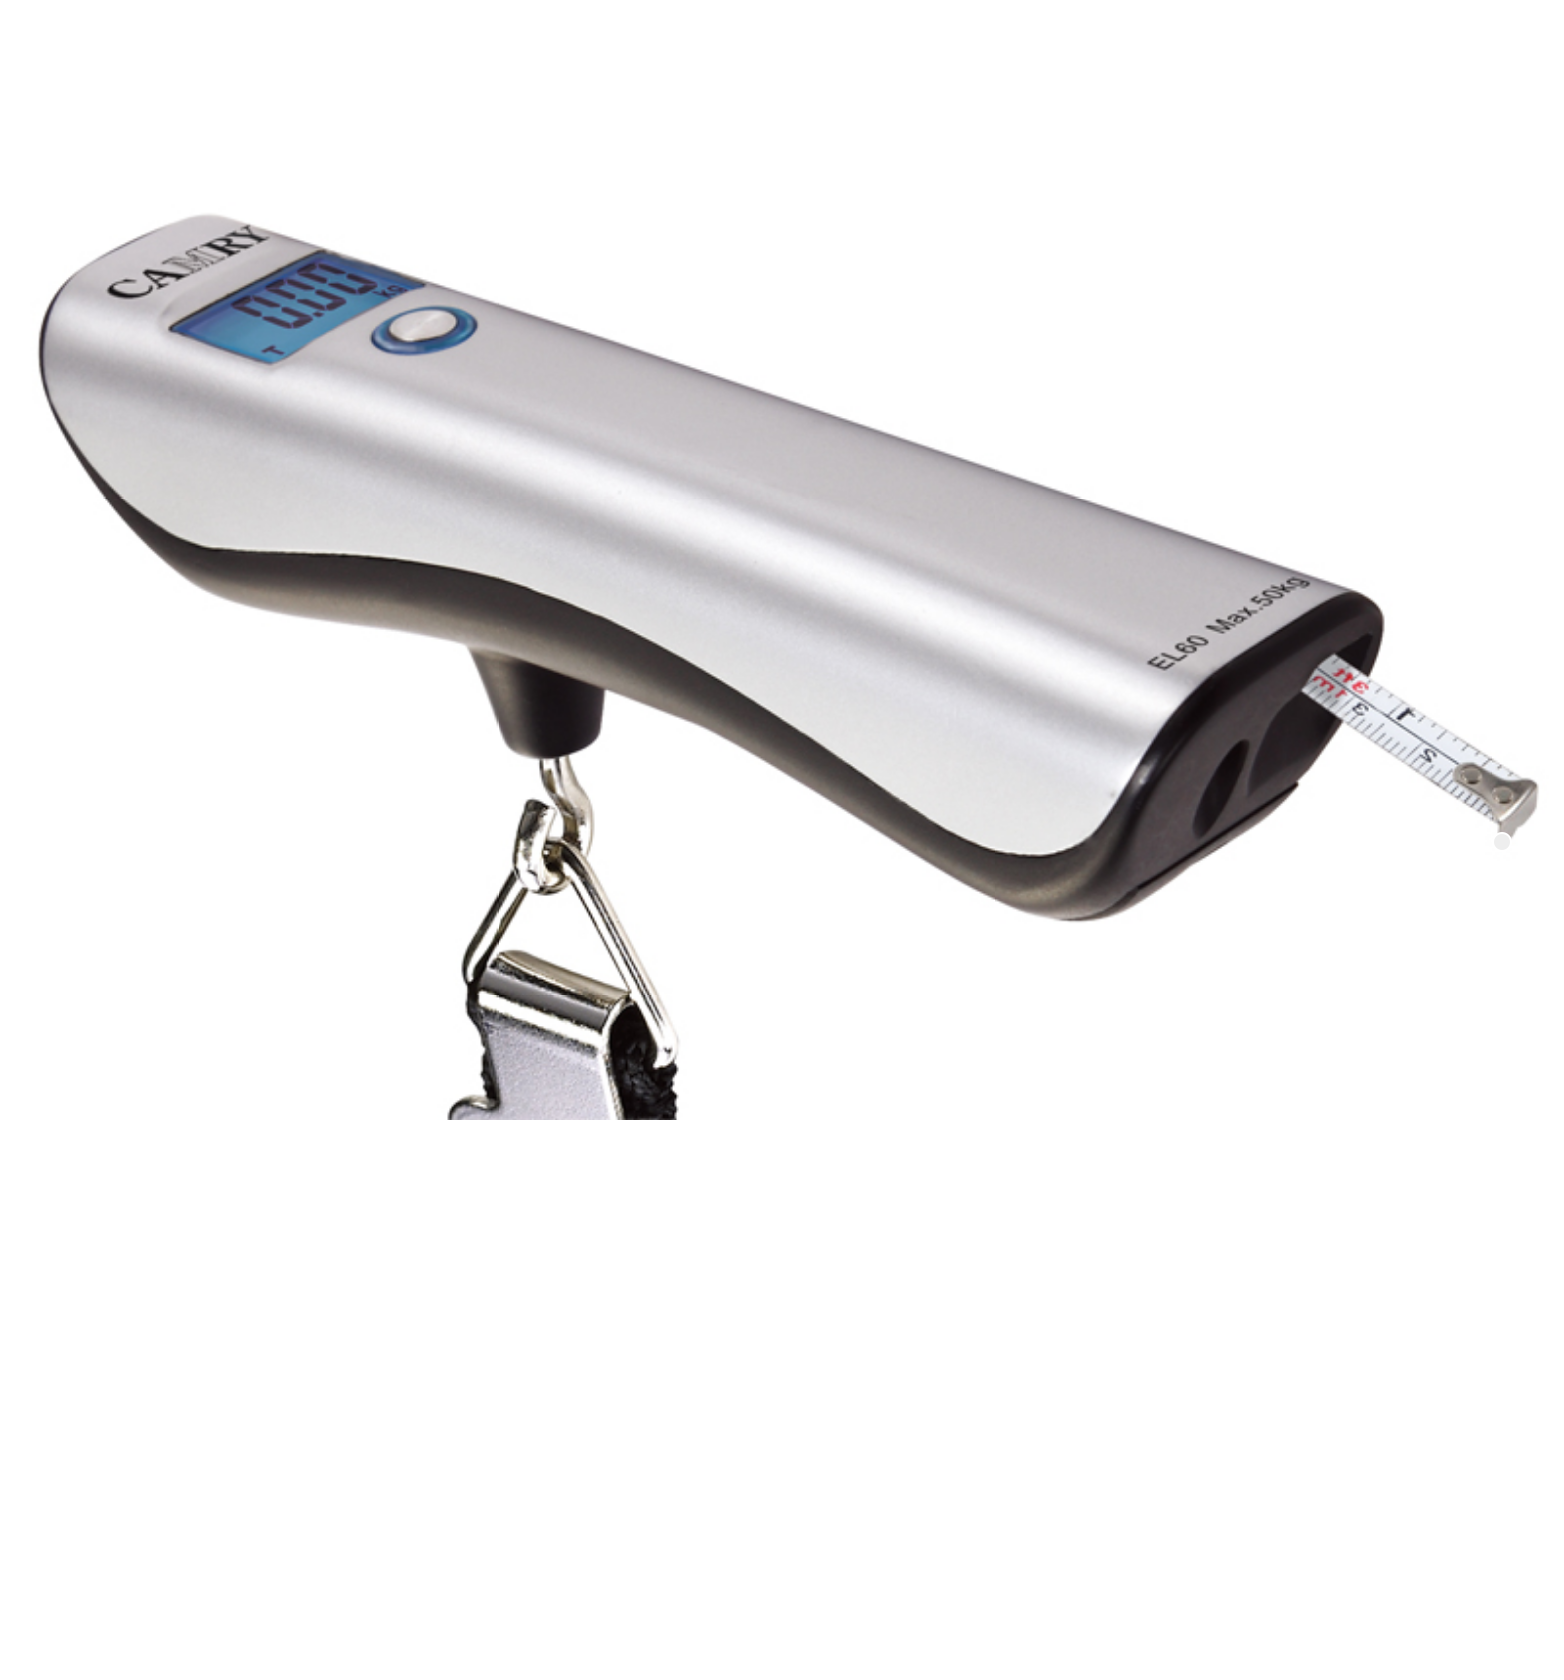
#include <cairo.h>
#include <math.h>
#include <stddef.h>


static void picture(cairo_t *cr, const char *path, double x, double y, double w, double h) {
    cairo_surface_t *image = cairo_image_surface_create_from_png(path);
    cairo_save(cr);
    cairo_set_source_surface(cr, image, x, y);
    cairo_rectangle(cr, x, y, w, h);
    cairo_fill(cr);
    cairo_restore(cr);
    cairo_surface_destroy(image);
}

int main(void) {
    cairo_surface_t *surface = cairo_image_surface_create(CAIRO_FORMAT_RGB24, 1564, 1680);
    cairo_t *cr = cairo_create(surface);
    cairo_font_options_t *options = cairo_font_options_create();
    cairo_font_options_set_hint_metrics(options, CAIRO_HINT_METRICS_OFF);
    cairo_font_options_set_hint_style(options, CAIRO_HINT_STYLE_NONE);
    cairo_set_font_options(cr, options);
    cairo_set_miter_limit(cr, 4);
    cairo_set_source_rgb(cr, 1, 1, 1);
    cairo_paint(cr);
    picture(cr, "img1.png", 0, 0, 1564, 1120);
    cairo_set_source_rgb(cr, 0.933, 0.933, 0.933);
    cairo_arc(cr, 1502, 842, 9, 0, 2 * M_PI);
    cairo_fill_preserve(cr);
    cairo_set_source_rgb(cr, 1, 1, 1);
    cairo_stroke(cr);
    cairo_surface_write_to_png(surface, "page.png");
    cairo_font_options_destroy(options);
    cairo_destroy(cr);
    cairo_surface_destroy(surface);
    return 0;
}
